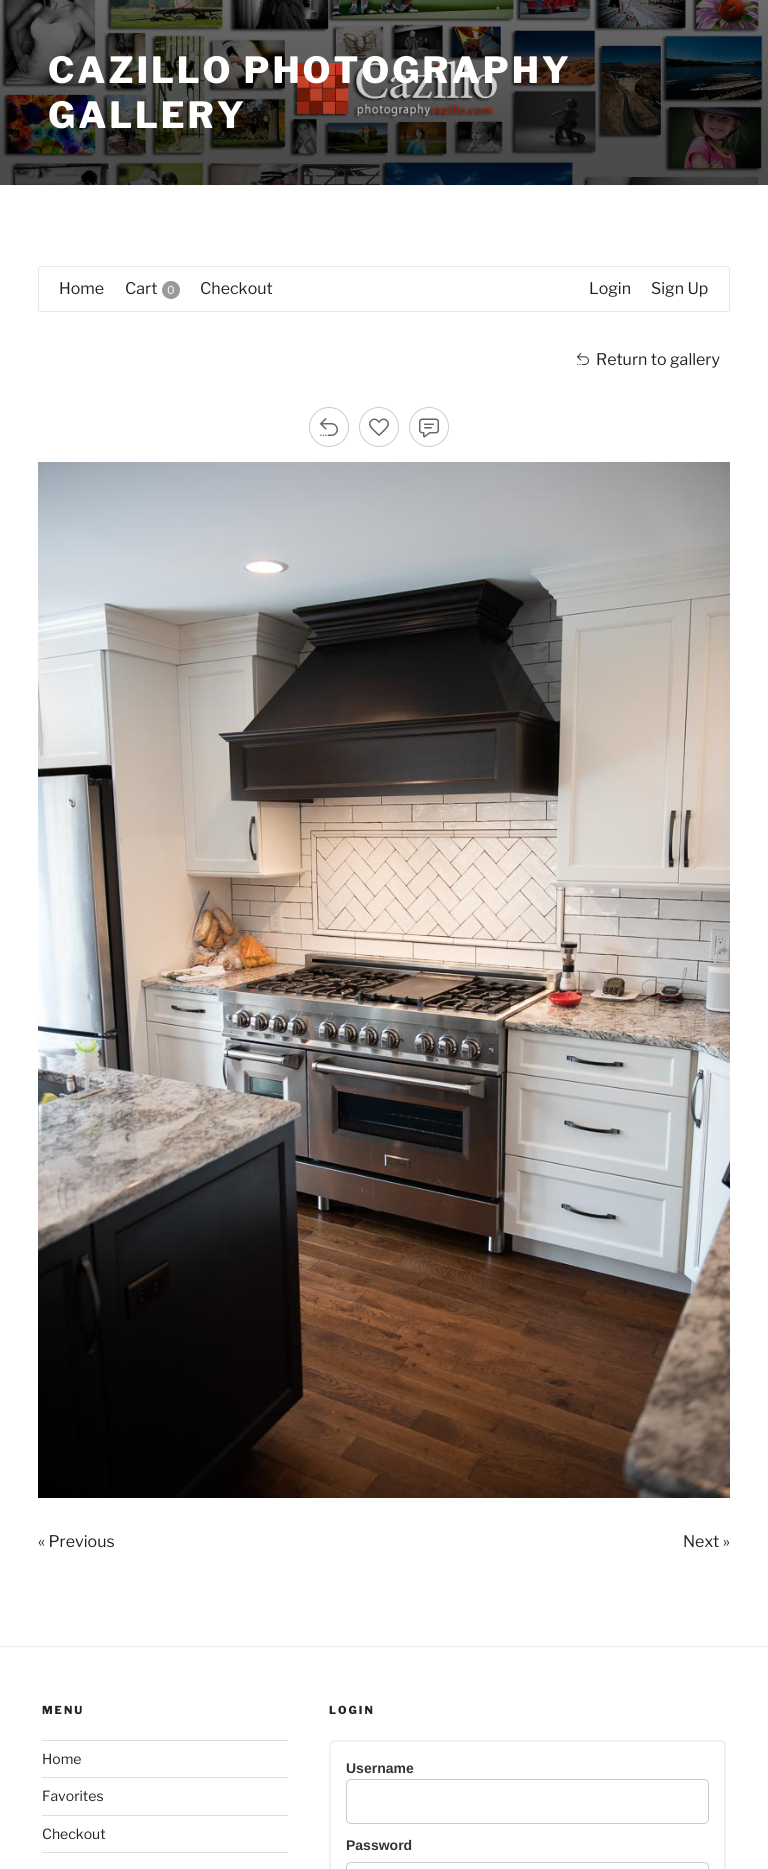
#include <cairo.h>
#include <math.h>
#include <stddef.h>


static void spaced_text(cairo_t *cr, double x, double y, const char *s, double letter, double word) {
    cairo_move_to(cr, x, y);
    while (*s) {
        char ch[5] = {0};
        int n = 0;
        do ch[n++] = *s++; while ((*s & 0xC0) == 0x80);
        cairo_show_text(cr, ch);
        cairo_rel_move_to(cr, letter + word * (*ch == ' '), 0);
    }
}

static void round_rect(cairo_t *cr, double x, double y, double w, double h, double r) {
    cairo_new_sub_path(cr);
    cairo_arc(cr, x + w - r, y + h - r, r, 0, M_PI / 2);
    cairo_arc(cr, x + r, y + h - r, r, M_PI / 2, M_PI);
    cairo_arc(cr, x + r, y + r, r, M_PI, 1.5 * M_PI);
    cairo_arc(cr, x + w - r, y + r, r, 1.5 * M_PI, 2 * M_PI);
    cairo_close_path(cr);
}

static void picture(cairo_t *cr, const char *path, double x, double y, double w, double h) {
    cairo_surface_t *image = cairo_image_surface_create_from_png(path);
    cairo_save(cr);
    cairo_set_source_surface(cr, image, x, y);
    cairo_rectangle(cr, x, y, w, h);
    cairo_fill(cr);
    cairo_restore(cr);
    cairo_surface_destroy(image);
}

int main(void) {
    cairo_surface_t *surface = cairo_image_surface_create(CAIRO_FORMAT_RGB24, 768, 1869);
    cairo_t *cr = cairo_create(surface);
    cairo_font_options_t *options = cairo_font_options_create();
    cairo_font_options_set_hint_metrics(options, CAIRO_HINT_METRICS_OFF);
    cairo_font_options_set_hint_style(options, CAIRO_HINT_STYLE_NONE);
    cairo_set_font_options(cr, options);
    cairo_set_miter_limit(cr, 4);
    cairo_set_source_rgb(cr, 1, 1, 1);
    cairo_paint(cr);
    cairo_set_source_rgb(cr, 0.98, 0.98, 0.98);
    cairo_rectangle(cr, 0, 185, 768, 1);
    cairo_fill(cr);
    picture(cr, "img1.png", 0, 0, 768, 185);
    cairo_select_font_face(cr, "Libre Franklin Thin", CAIRO_FONT_SLANT_NORMAL, CAIRO_FONT_WEIGHT_NORMAL);
    cairo_set_font_size(cr, 36);
    cairo_set_source_rgb(cr, 1, 1, 1);
    spaced_text(cr, 48, 83, "CAZILLO PHOTOGRAPHY", 2.9, 0);
    spaced_text(cr, 48, 128, "GALLERY", 2.9, 0);
    round_rect(cr, 38.5, 266.5, 691, 45, 2.5);
    cairo_set_source_rgb(cr, 0.902, 0.902, 0.902);
    cairo_set_line_width(cr, 1);
    cairo_stroke(cr);
    cairo_select_font_face(cr, "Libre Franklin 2 Thin", CAIRO_FONT_SLANT_NORMAL, CAIRO_FONT_WEIGHT_NORMAL);
    cairo_set_font_size(cr, 16);
    cairo_set_source_rgb(cr, 0.133, 0.133, 0.133);
    cairo_move_to(cr, 59, 294);
    cairo_show_text(cr, "Home");
    cairo_move_to(cr, 125, 294);
    cairo_show_text(cr, "Cart");
    cairo_set_source_rgb(cr, 0.6, 0.6, 0.6);
    cairo_new_path(cr);
    cairo_arc(cr, 171, 290, 9, 0, 2 * M_PI);
    cairo_fill(cr);
    cairo_set_font_size(cr, 11);
    cairo_set_source_rgb(cr, 1, 1, 1);
    cairo_move_to(cr, 167, 294);
    cairo_show_text(cr, "0");
    cairo_set_font_size(cr, 16);
    cairo_set_source_rgb(cr, 0.133, 0.133, 0.133);
    cairo_move_to(cr, 200, 294);
    cairo_show_text(cr, "Checkout");
    cairo_move_to(cr, 589, 294);
    cairo_show_text(cr, "Login");
    cairo_move_to(cr, 651, 294);
    cairo_show_text(cr, "Sign Up");
    picture(cr, "img2.png", 577, 353, 12, 12);
    cairo_move_to(cr, 596, 365);
    cairo_show_text(cr, "Return to gallery");
    cairo_new_path(cr);
    cairo_arc(cr, 329, 427, 19.5, 0, 2 * M_PI);
    cairo_set_source_rgb(cr, 0.8, 0.8, 0.8);
    cairo_stroke(cr);
    picture(cr, "img3.png", 320, 418, 18, 18);
    cairo_arc(cr, 379, 427, 19.5, 0, 2 * M_PI);
    cairo_stroke(cr);
    picture(cr, "img4.png", 369, 418, 20, 18);
    cairo_arc(cr, 429, 427, 19.5, 0, 2 * M_PI);
    cairo_stroke(cr);
    picture(cr, "img5.png", 419, 418, 20, 20);
    picture(cr, "img6.png", 38, 462, 692, 1036);
    cairo_set_source_rgb(cr, 0.133, 0.133, 0.133);
    cairo_move_to(cr, 38, 1547);
    cairo_show_text(cr, "« Previous");
    cairo_move_to(cr, 683, 1547);
    cairo_show_text(cr, "Next »");
    cairo_set_source_rgb(cr, 0.933, 0.933, 0.933);
    cairo_rectangle(cr, 0, 1646, 768, 1);
    cairo_fill(cr);
    cairo_select_font_face(cr, "Libre Franklin Thin", CAIRO_FONT_SLANT_NORMAL, CAIRO_FONT_WEIGHT_NORMAL);
    cairo_set_font_size(cr, 11);
    cairo_set_source_rgb(cr, 0.133, 0.133, 0.133);
    spaced_text(cr, 42, 1714, "MENU", 2, 0);
    cairo_set_source_rgb(cr, 0.867, 0.867, 0.867);
    cairo_rectangle(cr, 42, 1740, 246, 1);
    cairo_fill(cr);
    cairo_rectangle(cr, 42, 1777, 246, 1);
    cairo_fill(cr);
    cairo_select_font_face(cr, "Libre Franklin 2 Thin", CAIRO_FONT_SLANT_NORMAL, CAIRO_FONT_WEIGHT_NORMAL);
    cairo_set_font_size(cr, 14);
    cairo_set_source_rgb(cr, 0.133, 0.133, 0.133);
    cairo_move_to(cr, 42, 1764);
    cairo_show_text(cr, "Home");
    cairo_set_source_rgb(cr, 0.867, 0.867, 0.867);
    cairo_rectangle(cr, 42, 1815, 246, 1);
    cairo_fill(cr);
    cairo_set_source_rgb(cr, 0.133, 0.133, 0.133);
    cairo_move_to(cr, 42, 1801);
    cairo_show_text(cr, "Favorites");
    cairo_set_source_rgb(cr, 0.867, 0.867, 0.867);
    cairo_rectangle(cr, 42, 1852, 246, 1);
    cairo_fill(cr);
    cairo_set_source_rgb(cr, 0.133, 0.133, 0.133);
    cairo_move_to(cr, 42, 1839);
    cairo_show_text(cr, "Checkout");
    cairo_select_font_face(cr, "Libre Franklin Thin", CAIRO_FONT_SLANT_NORMAL, CAIRO_FONT_WEIGHT_NORMAL);
    cairo_set_font_size(cr, 11);
    spaced_text(cr, 329, 1714, "LOGIN", 2, 0);
    round_rect(cr, 330, 1741, 395, 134, 4);
    cairo_set_source_rgb(cr, 0.945, 0.945, 0.945);
    cairo_set_line_width(cr, 2);
    cairo_stroke(cr);
    cairo_select_font_face(cr, "Liberation Sans", CAIRO_FONT_SLANT_NORMAL, CAIRO_FONT_WEIGHT_BOLD);
    cairo_set_font_size(cr, 14);
    cairo_set_source_rgb(cr, 0.2, 0.2, 0.2);
    cairo_move_to(cr, 346, 1773);
    cairo_show_text(cr, "Username");
    round_rect(cr, 346.5, 1779.5, 362, 44, 4.5);
    cairo_set_source_rgb(cr, 0.8, 0.8, 0.8);
    cairo_set_line_width(cr, 1);
    cairo_stroke(cr);
    cairo_set_source_rgb(cr, 0.2, 0.2, 0.2);
    cairo_move_to(cr, 346, 1850);
    cairo_show_text(cr, "Password");
    round_rect(cr, 346.5, 1862.5, 362, 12, 4.5);
    cairo_set_source_rgb(cr, 0.8, 0.8, 0.8);
    cairo_stroke(cr);
    cairo_surface_write_to_png(surface, "page.png");
    cairo_font_options_destroy(options);
    cairo_destroy(cr);
    cairo_surface_destroy(surface);
    return 0;
}
